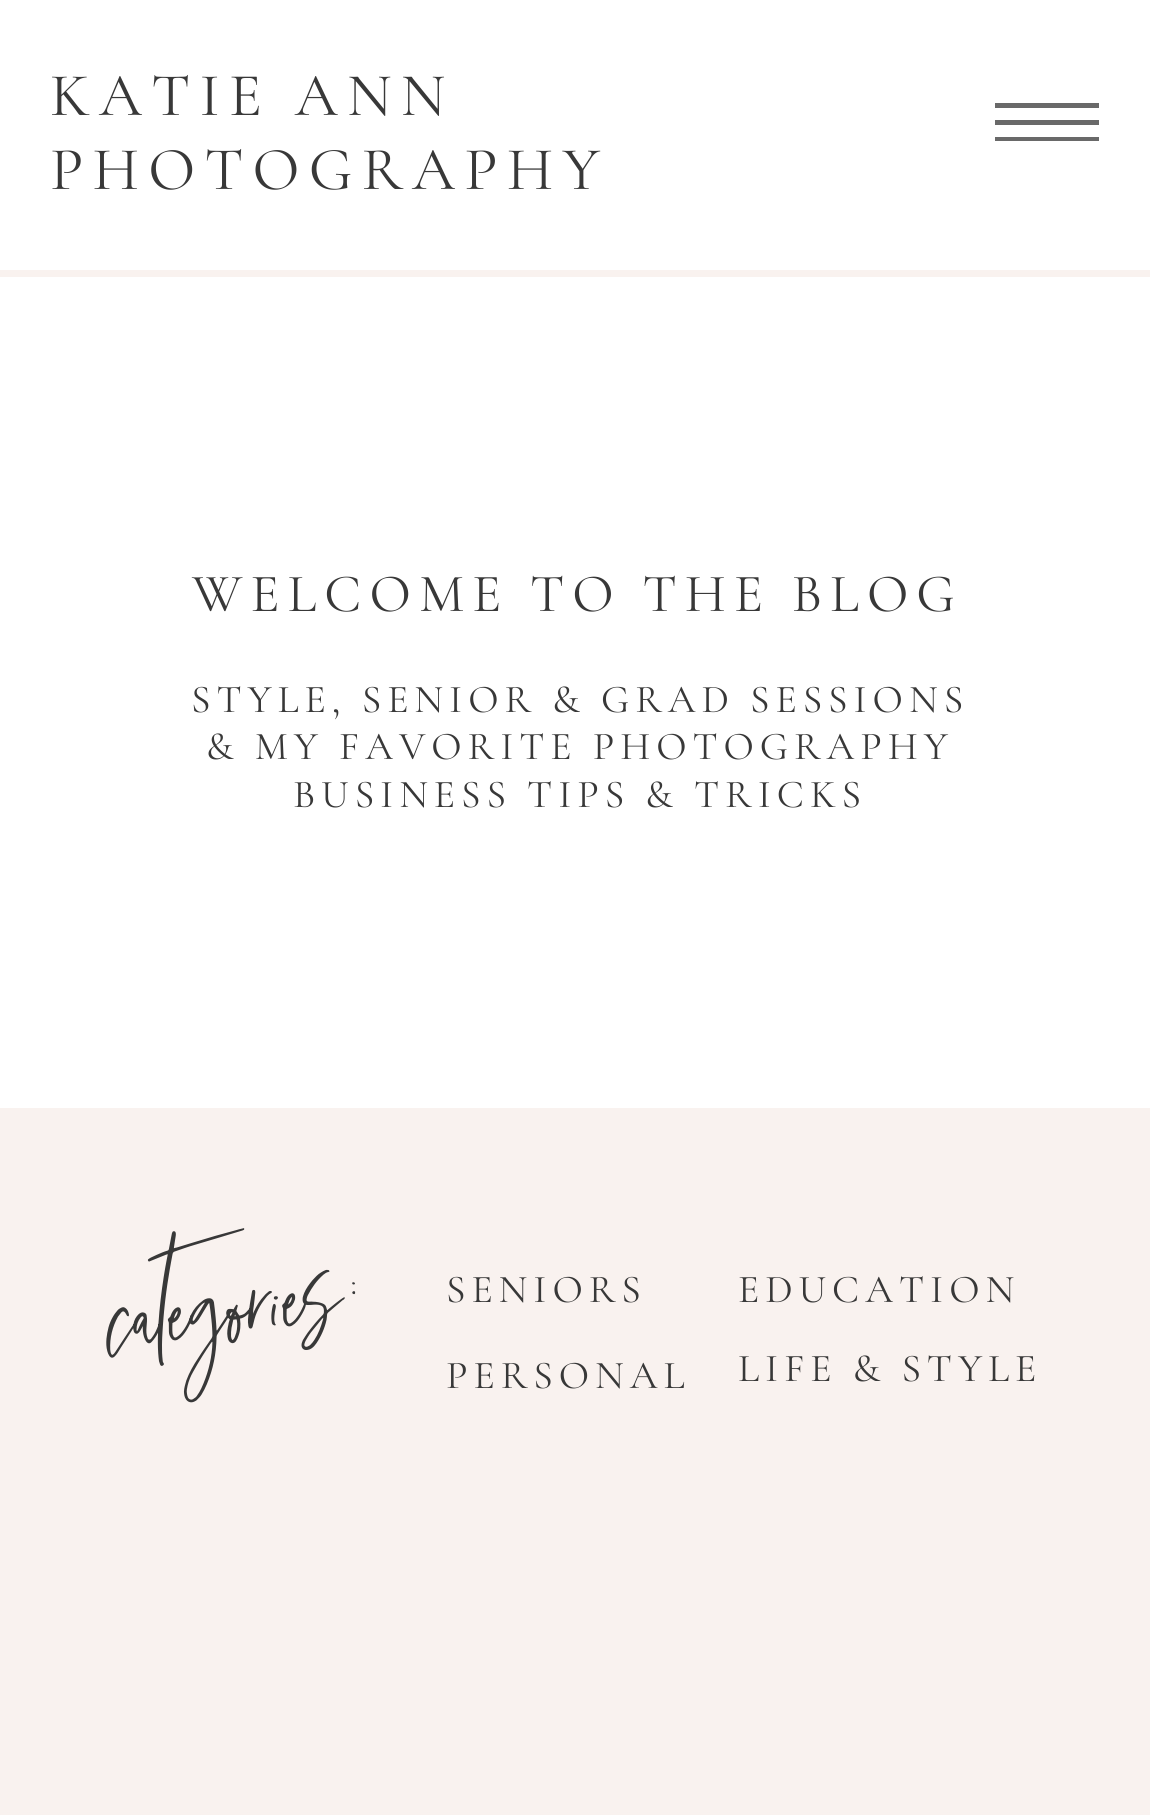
#include <cairo.h>
#include <math.h>
#include <stddef.h>


static void spaced_text(cairo_t *cr, double x, double y, const char *s, double letter, double word) {
    cairo_move_to(cr, x, y);
    while (*s) {
        char ch[5] = {0};
        int n = 0;
        do ch[n++] = *s++; while ((*s & 0xC0) == 0x80);
        cairo_show_text(cr, ch);
        cairo_rel_move_to(cr, letter + word * (*ch == ' '), 0);
    }
}

int main(void) {
    cairo_surface_t *surface = cairo_image_surface_create(CAIRO_FORMAT_RGB24, 1150, 1815);
    cairo_t *cr = cairo_create(surface);
    cairo_font_options_t *options = cairo_font_options_create();
    cairo_font_options_set_hint_metrics(options, CAIRO_HINT_METRICS_OFF);
    cairo_font_options_set_hint_style(options, CAIRO_HINT_STYLE_NONE);
    cairo_set_font_options(cr, options);
    cairo_set_miter_limit(cr, 4);
    cairo_set_source_rgb(cr, 1, 1, 1);
    cairo_paint(cr);
    cairo_select_font_face(cr, "Cormorant Garamond", CAIRO_FONT_SLANT_NORMAL, CAIRO_FONT_WEIGHT_NORMAL);
    cairo_set_font_size(cr, 61.25);
    cairo_set_source_rgb(cr, 0.22, 0.22, 0.22);
    spaced_text(cr, 50, 115, "KATIE ANN", 9.25, 0);
    spaced_text(cr, 50, 189, "PHOTOGRAPHY", 9.25, 0);
    cairo_set_source_rgb(cr, 0.412, 0.412, 0.412);
    cairo_new_path(cr);
    cairo_move_to(cr, 995, 137);
    cairo_line_to(cr, 1099, 137);
    cairo_line_to(cr, 1099, 141);
    cairo_line_to(cr, 995, 141);
    cairo_close_path(cr);
    cairo_move_to(cr, 995, 120);
    cairo_line_to(cr, 1099, 120);
    cairo_line_to(cr, 1099, 125);
    cairo_line_to(cr, 995, 125);
    cairo_close_path(cr);
    cairo_move_to(cr, 995, 103);
    cairo_line_to(cr, 1099, 103);
    cairo_line_to(cr, 1099, 108);
    cairo_line_to(cr, 995, 108);
    cairo_close_path(cr);
    cairo_fill(cr);
    cairo_set_source_rgb(cr, 0.976, 0.949, 0.937);
    cairo_rectangle(cr, 0, 270, 1150, 7);
    cairo_fill(cr);
    cairo_set_font_size(cr, 54);
    cairo_set_source_rgb(cr, 0.22, 0.22, 0.22);
    spaced_text(cr, 192, 611, "WELCOME TO THE BLOG", 8.1, 0);
    cairo_set_font_size(cr, 39.6);
    spaced_text(cr, 191, 712, "STYLE, SENIOR & GRAD SESSIONS", 5.95, 0);
    spaced_text(cr, 206, 759, "& MY FAVORITE PHOTOGRAPHY", 5.95, 0);
    spaced_text(cr, 293, 807, "BUSINESS TIPS & TRICKS", 5.95, 0);
    cairo_set_source_rgb(cr, 0.976, 0.949, 0.937);
    cairo_rectangle(cr, 0, 1108, 1150, 707);
    cairo_fill(cr);
    cairo_select_font_face(cr, "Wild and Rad", CAIRO_FONT_SLANT_NORMAL, CAIRO_FONT_WEIGHT_NORMAL);
    cairo_set_font_size(cr, 162);
    cairo_set_source_rgb(cr, 0.22, 0.22, 0.22);
    cairo_save(cr);
    cairo_translate(cr, 108, 1346);
    cairo_rotate(cr, -7 * M_PI / 180);
    cairo_move_to(cr, 0, 0);
    cairo_show_text(cr, "categories:");
    cairo_restore(cr);
    cairo_select_font_face(cr, "Cormorant Garamond", CAIRO_FONT_SLANT_NORMAL, CAIRO_FONT_WEIGHT_NORMAL);
    cairo_set_font_size(cr, 39.6);
    spaced_text(cr, 446, 1302, "SENIORS", 5.95, 0);
    spaced_text(cr, 738, 1302, "EDUCATION", 5.95, 0);
    spaced_text(cr, 446, 1388, "PERSONAL", 5.95, 0);
    spaced_text(cr, 738, 1381, "LIFE & STYLE", 5.95, 0);
    cairo_surface_write_to_png(surface, "page.png");
    cairo_font_options_destroy(options);
    cairo_destroy(cr);
    cairo_surface_destroy(surface);
    return 0;
}
